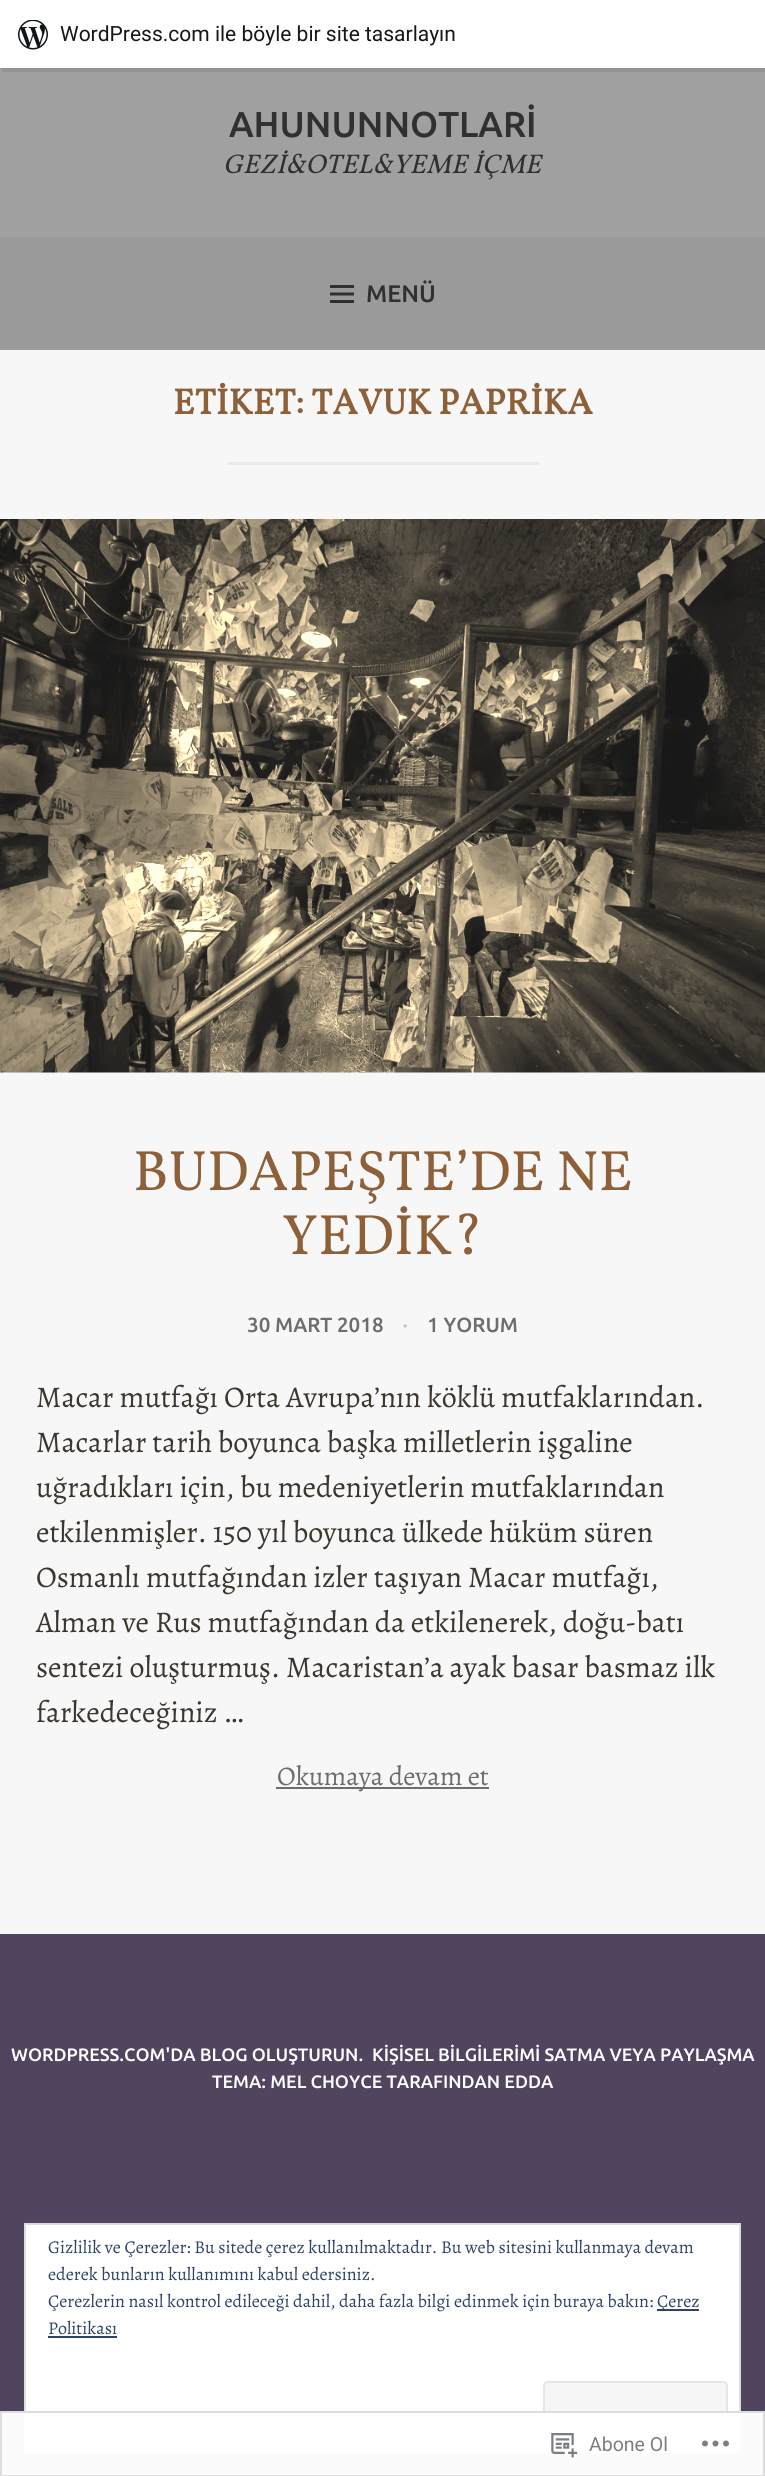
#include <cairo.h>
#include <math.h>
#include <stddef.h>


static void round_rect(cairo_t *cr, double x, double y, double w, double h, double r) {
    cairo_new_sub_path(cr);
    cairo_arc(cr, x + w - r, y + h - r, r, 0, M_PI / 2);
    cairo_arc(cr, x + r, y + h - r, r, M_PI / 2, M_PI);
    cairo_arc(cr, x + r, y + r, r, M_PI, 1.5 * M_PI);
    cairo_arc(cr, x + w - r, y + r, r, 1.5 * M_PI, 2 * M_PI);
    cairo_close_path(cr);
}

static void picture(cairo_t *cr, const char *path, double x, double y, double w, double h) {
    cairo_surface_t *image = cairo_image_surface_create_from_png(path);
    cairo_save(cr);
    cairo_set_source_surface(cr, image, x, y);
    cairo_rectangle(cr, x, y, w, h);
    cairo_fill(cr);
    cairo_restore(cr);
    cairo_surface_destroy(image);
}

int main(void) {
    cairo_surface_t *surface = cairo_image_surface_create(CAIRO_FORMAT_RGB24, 765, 2476);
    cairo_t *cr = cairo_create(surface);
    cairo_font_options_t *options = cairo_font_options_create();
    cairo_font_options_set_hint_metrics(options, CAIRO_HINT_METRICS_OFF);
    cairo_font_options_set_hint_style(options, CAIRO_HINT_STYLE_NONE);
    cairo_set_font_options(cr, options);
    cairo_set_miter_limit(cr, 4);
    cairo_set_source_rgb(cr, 0.318, 0.267, 0.373);
    cairo_paint(cr);
    cairo_set_source_rgb(cr, 0.627, 0.627, 0.627);
    cairo_rectangle(cr, 0, 68, 765, 169);
    cairo_fill(cr);
    cairo_set_source_rgba(cr, 0, 0, 0, 0.08);
    cairo_new_path(cr);
    cairo_move_to(cr, 2, 68);
    cairo_line_to(cr, 2, 72);
    cairo_line_to(cr, 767, 72);
    cairo_line_to(cr, 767, 5);
    cairo_line_to(cr, 765, 5);
    cairo_line_to(cr, 765, 68);
    cairo_close_path(cr);
    cairo_fill(cr);
    cairo_set_source_rgb(cr, 1, 1, 1);
    cairo_rectangle(cr, 0, 0, 765, 68);
    cairo_fill(cr);
    picture(cr, "img1.png", 18, 20, 30, 30);
    cairo_select_font_face(cr, "Roboto", CAIRO_FONT_SLANT_NORMAL, CAIRO_FONT_WEIGHT_NORMAL);
    cairo_set_font_size(cr, 21);
    cairo_set_source_rgb(cr, 0.09, 0.09, 0.09);
    cairo_move_to(cr, 60, 41);
    cairo_show_text(cr, "WordPress.com ile böyle bir site tasarlayın");
    cairo_select_font_face(cr, "Ubuntu Medium", CAIRO_FONT_SLANT_NORMAL, CAIRO_FONT_WEIGHT_NORMAL);
    cairo_set_font_size(cr, 36);
    cairo_set_source_rgb(cr, 0.188, 0.188, 0.188);
    cairo_move_to(cr, 229, 137);
    cairo_show_text(cr, "AHUNUNNOTLARİ");
    cairo_select_font_face(cr, "Vollkorn", CAIRO_FONT_SLANT_ITALIC, CAIRO_FONT_WEIGHT_NORMAL);
    cairo_set_font_size(cr, 27);
    cairo_move_to(cr, 223, 173);
    cairo_show_text(cr, "GEZİ&OTEL&YEME İÇME");
    cairo_set_source_rgb(cr, 0.604, 0.604, 0.604);
    cairo_rectangle(cr, 0, 237, 765, 113);
    cairo_fill(cr);
    picture(cr, "img2.png", 330, 285, 24, 18);
    cairo_select_font_face(cr, "Ubuntu Medium", CAIRO_FONT_SLANT_NORMAL, CAIRO_FONT_WEIGHT_NORMAL);
    cairo_set_font_size(cr, 24);
    cairo_set_source_rgb(cr, 0.188, 0.188, 0.188);
    cairo_move_to(cr, 366, 302);
    cairo_show_text(cr, "MENÜ");
    cairo_set_source_rgb(cr, 0.965, 0.965, 0.969);
    cairo_rectangle(cr, 0, 350, 765, 1584);
    cairo_fill(cr);
    cairo_select_font_face(cr, "Vollkorn", CAIRO_FONT_SLANT_NORMAL, CAIRO_FONT_WEIGHT_BOLD);
    cairo_set_font_size(cr, 36);
    cairo_set_source_rgb(cr, 0.553, 0.376, 0.224);
    cairo_move_to(cr, 173, 414);
    cairo_show_text(cr, "ETİKET: TAVUK PAPRİKA");
    cairo_set_source_rgb(cr, 0.914, 0.914, 0.918);
    cairo_rectangle(cr, 228, 462, 311, 3);
    cairo_fill(cr);
    picture(cr, "img3.png", 0, 519, 765, 554);
    cairo_select_font_face(cr, "Vollkorn", CAIRO_FONT_SLANT_NORMAL, CAIRO_FONT_WEIGHT_NORMAL);
    cairo_set_font_size(cr, 57);
    cairo_set_source_rgb(cr, 0.553, 0.376, 0.224);
    cairo_move_to(cr, 133, 1190);
    cairo_show_text(cr, "BUDAPEŞTE’DE NE");
    cairo_move_to(cr, 282, 1254);
    cairo_show_text(cr, "YEDİK?");
    cairo_select_font_face(cr, "Ubuntu Medium", CAIRO_FONT_SLANT_NORMAL, CAIRO_FONT_WEIGHT_NORMAL);
    cairo_set_font_size(cr, 20.5);
    cairo_set_source_rgb(cr, 0.427, 0.427, 0.427);
    cairo_move_to(cr, 247, 1332);
    cairo_show_text(cr, "30 MART 2018");
    cairo_set_source_rgb(cr, 0.792, 0.749, 0.698);
    cairo_move_to(cr, 403, 1332);
    cairo_show_text(cr, "·");
    cairo_set_source_rgb(cr, 0.427, 0.427, 0.427);
    cairo_move_to(cr, 427, 1332);
    cairo_show_text(cr, "1 YORUM");
    cairo_select_font_face(cr, "Alegreya", CAIRO_FONT_SLANT_NORMAL, CAIRO_FONT_WEIGHT_NORMAL);
    cairo_set_font_size(cr, 30);
    cairo_set_source_rgb(cr, 0.235, 0.212, 0.18);
    cairo_move_to(cr, 36, 1407);
    cairo_show_text(cr, "Macar mutfağı Orta Avrupa’nın köklü mutfaklarından.");
    cairo_move_to(cr, 36, 1452);
    cairo_show_text(cr, "Macarlar tarih boyunca başka milletlerin işgaline");
    cairo_move_to(cr, 36, 1497);
    cairo_show_text(cr, "uğradıkları için, bu medeniyetlerin mutfaklarından");
    cairo_move_to(cr, 36, 1542);
    cairo_show_text(cr, "etkilenmişler. 150 yıl boyunca ülkede hüküm süren");
    cairo_move_to(cr, 36, 1587);
    cairo_show_text(cr, "Osmanlı mutfağından izler taşıyan Macar mutfağı,");
    cairo_move_to(cr, 36, 1632);
    cairo_show_text(cr, "Alman ve Rus mutfağından da etkilenerek, doğu-batı");
    cairo_move_to(cr, 36, 1677);
    cairo_show_text(cr, "sentezi oluşturmuş. Macaristan’a ayak basar basmaz ilk");
    cairo_move_to(cr, 36, 1722);
    cairo_show_text(cr, "farkedeceğiniz …");
    cairo_set_source_rgb(cr, 0.427, 0.427, 0.427);
    cairo_rectangle(cr, 276, 1787, 213, 2);
    cairo_fill(cr);
    cairo_set_font_size(cr, 27);
    cairo_move_to(cr, 277, 1785);
    cairo_show_text(cr, "Okumaya devam et");
    cairo_select_font_face(cr, "Ubuntu Medium", CAIRO_FONT_SLANT_NORMAL, CAIRO_FONT_WEIGHT_NORMAL);
    cairo_set_font_size(cr, 18);
    cairo_set_source_rgb(cr, 1, 1, 1);
    cairo_move_to(cr, 11, 2061);
    cairo_show_text(cr, "WORDPRESS.COM'DA BLOG OLUŞTURUN.");
    cairo_move_to(cr, 372, 2061);
    cairo_show_text(cr, "KİŞİSEL BİLGİLERİMİ SATMA VEYA PAYLAŞMA");
    cairo_move_to(cr, 212, 2088);
    cairo_show_text(cr, "TEMA: MEL CHOYCE TARAFINDAN EDDA");
    cairo_rectangle(cr, 25, 2224, 715, 228);
    cairo_fill_preserve(cr);
    cairo_set_source_rgb(cr, 0.871, 0.871, 0.871);
    cairo_stroke(cr);
    cairo_select_font_face(cr, "Alegreya", CAIRO_FONT_SLANT_NORMAL, CAIRO_FONT_WEIGHT_NORMAL);
    cairo_set_source_rgb(cr, 0.18, 0.267, 0.404);
    cairo_move_to(cr, 48, 2253);
    cairo_show_text(cr, "Gizlilik ve Çerezler: Bu sitede çerez kullanılmaktadır. Bu web sitesini kullanmaya devam");
    cairo_move_to(cr, 48, 2280);
    cairo_show_text(cr, "ederek bunların kullanımını kabul edersiniz.");
    cairo_move_to(cr, 48, 2307);
    cairo_show_text(cr, "Çerezlerin nasıl kontrol edileceği dahil, daha fazla bilgi edinmek için buraya bakın:");
    cairo_rectangle(cr, 657, 2309, 42, 2);
    cairo_fill(cr);
    cairo_move_to(cr, 657, 2307);
    cairo_show_text(cr, "Çerez");
    cairo_move_to(cr, 48, 2334);
    cairo_show_text(cr, "Politikası");
    cairo_rectangle(cr, 48, 2336, 69, 2);
    cairo_fill(cr);
    cairo_set_source_rgb(cr, 0.961, 0.961, 0.961);
    round_rect(cr, 544, 2382, 183, 56, 4);
    cairo_fill_preserve(cr);
    cairo_set_source_rgb(cr, 0.898, 0.898, 0.898);
    cairo_stroke(cr);
    cairo_set_source_rgba(cr, 1, 1, 1, 0.98);
    cairo_rectangle(cr, 0, 2411, 765, 65);
    cairo_fill(cr);
    cairo_rectangle(cr, 1, 2412, 763, 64);
    cairo_set_source_rgba(cr, 0.863, 0.863, 0.871, 0.98);
    cairo_stroke(cr);
    picture(cr, "img4.png", 551, 2433, 27, 25);
    cairo_select_font_face(cr, "Roboto", CAIRO_FONT_SLANT_NORMAL, CAIRO_FONT_WEIGHT_NORMAL);
    cairo_set_font_size(cr, 19.5);
    cairo_set_source_rgb(cr, 0.482, 0.498, 0.518);
    cairo_move_to(cr, 589, 2451);
    cairo_show_text(cr, "Abone Ol");
    picture(cr, "img5.png", 702, 2440, 27, 7);
    cairo_surface_write_to_png(surface, "page.png");
    cairo_font_options_destroy(options);
    cairo_destroy(cr);
    cairo_surface_destroy(surface);
    return 0;
}
